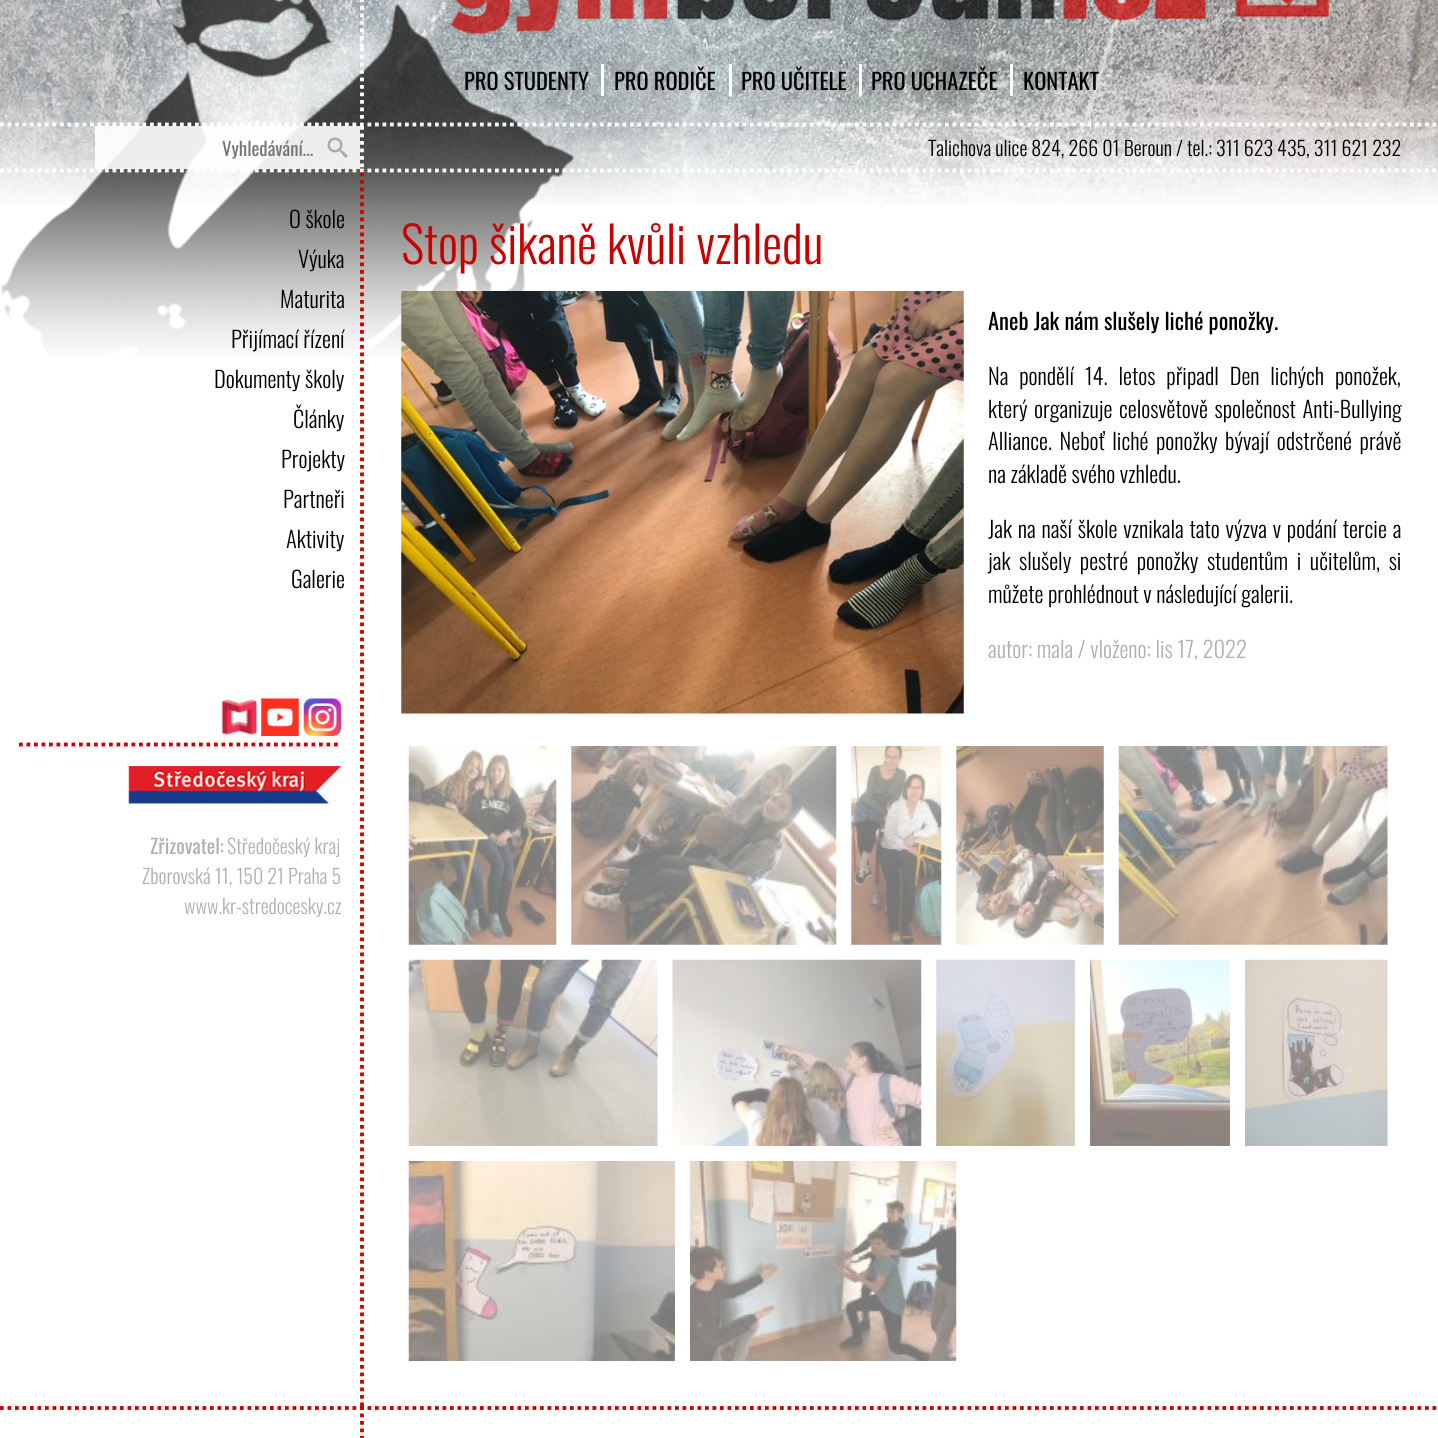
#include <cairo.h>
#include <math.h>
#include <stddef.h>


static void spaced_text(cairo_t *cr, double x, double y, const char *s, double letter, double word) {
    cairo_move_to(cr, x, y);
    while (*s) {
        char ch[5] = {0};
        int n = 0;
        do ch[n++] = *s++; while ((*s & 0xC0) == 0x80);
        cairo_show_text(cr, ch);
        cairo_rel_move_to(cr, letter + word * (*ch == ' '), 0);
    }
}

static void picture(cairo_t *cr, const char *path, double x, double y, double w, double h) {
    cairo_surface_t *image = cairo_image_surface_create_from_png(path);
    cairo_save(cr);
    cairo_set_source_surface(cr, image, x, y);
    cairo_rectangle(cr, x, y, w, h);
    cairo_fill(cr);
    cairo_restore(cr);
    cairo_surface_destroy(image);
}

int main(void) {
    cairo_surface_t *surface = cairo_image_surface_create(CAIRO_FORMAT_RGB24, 1438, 1438);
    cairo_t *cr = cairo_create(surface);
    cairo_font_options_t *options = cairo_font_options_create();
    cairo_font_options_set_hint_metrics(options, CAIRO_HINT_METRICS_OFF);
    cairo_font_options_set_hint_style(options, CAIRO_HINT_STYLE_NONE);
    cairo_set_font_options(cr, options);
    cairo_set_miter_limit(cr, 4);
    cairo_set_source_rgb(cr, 1, 1, 1);
    cairo_paint(cr);
    picture(cr, "img1.png", 0, 0, 1438, 205);
    picture(cr, "img2.png", 0, 0, 574, 356);
    cairo_new_path(cr);
    cairo_move_to(cr, 362, -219);
    cairo_line_to(cr, 362, 47.5);
    cairo_set_source_rgb(cr, 1, 1, 1);
    cairo_set_line_width(cr, 3.8);
    cairo_set_dash(cr, (double[]){3.75, 3.75}, 2, 0);
    cairo_stroke(cr);
    picture(cr, "img3.png", 450, 0, 879, 34);
    cairo_new_path(cr);
    cairo_move_to(cr, 362, 47.5);
    cairo_line_to(cr, 362, 122.5);
    cairo_stroke(cr);
    cairo_rectangle(cr, 601, 64, 3, 32);
    cairo_fill(cr);
    cairo_select_font_face(cr, "Oswald", CAIRO_FONT_SLANT_NORMAL, CAIRO_FONT_WEIGHT_NORMAL);
    cairo_set_font_size(cr, 22.5);
    cairo_set_source_rgb(cr, 0, 0, 0);
    cairo_move_to(cr, 464, 90);
    cairo_show_text(cr, "PRO STUDENTY");
    cairo_set_source_rgb(cr, 1, 1, 1);
    cairo_rectangle(cr, 729, 64, 3, 32);
    cairo_fill(cr);
    cairo_set_source_rgb(cr, 0, 0, 0);
    cairo_move_to(cr, 614, 90);
    cairo_show_text(cr, "PRO RODIČE");
    cairo_set_source_rgb(cr, 1, 1, 1);
    cairo_rectangle(cr, 859, 64, 3, 32);
    cairo_fill(cr);
    cairo_set_source_rgb(cr, 0, 0, 0);
    cairo_move_to(cr, 741, 90);
    cairo_show_text(cr, "PRO UČITELE");
    cairo_set_source_rgb(cr, 1, 1, 1);
    cairo_rectangle(cr, 1010, 64, 3, 32);
    cairo_fill(cr);
    cairo_set_source_rgb(cr, 0, 0, 0);
    cairo_move_to(cr, 871, 90);
    cairo_show_text(cr, "PRO UCHAZEČE");
    cairo_move_to(cr, 1023, 90);
    cairo_show_text(cr, "KONTAKT");
    cairo_new_path(cr);
    cairo_move_to(cr, 0, 124.5);
    cairo_line_to(cr, 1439, 124.5);
    cairo_set_source_rgb(cr, 1, 1, 1);
    cairo_stroke(cr);
    cairo_new_path(cr);
    cairo_move_to(cr, 0, 170.5);
    cairo_line_to(cr, 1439, 170.5);
    cairo_stroke(cr);
    cairo_set_source_rgba(cr, 1, 1, 1, 0.9);
    cairo_rectangle(cr, 95, 126, 265, 43);
    cairo_fill(cr);
    cairo_set_font_size(cr, 18.75);
    cairo_set_source_rgb(cr, 0.459, 0.459, 0.459);
    cairo_move_to(cr, 222, 156);
    cairo_show_text(cr, "Vyhledávání...");
    picture(cr, "img4.png", 327, 137, 21, 21);
    cairo_new_path(cr);
    cairo_move_to(cr, 362, 126);
    cairo_line_to(cr, 362, 169);
    cairo_set_source_rgb(cr, 1, 1, 1);
    cairo_stroke(cr);
    cairo_select_font_face(cr, "Oswald Light", CAIRO_FONT_SLANT_NORMAL, CAIRO_FONT_WEIGHT_NORMAL);
    cairo_set_font_size(cr, 20);
    cairo_set_source_rgb(cr, 0, 0, 0);
    cairo_move_to(cr, 928, 156);
    cairo_show_text(cr, "Talichova ulice 824, 266 01 Beroun / tel.: 311 623 435, 311 621 232");
    cairo_set_font_size(cr, 22.5);
    cairo_move_to(cr, 289, 228);
    cairo_show_text(cr, "O škole");
    cairo_move_to(cr, 298, 268);
    cairo_show_text(cr, "Výuka");
    cairo_move_to(cr, 280, 308);
    cairo_show_text(cr, "Maturita");
    cairo_move_to(cr, 231, 348);
    cairo_show_text(cr, "Přijímací řízení");
    cairo_move_to(cr, 214, 388);
    cairo_show_text(cr, "Dokumenty školy");
    cairo_move_to(cr, 293, 428);
    cairo_show_text(cr, "Články");
    cairo_move_to(cr, 281, 468);
    cairo_show_text(cr, "Projekty");
    cairo_move_to(cr, 283, 508);
    cairo_show_text(cr, "Partneři");
    cairo_move_to(cr, 286, 548);
    cairo_show_text(cr, "Aktivity");
    cairo_move_to(cr, 291, 588);
    cairo_show_text(cr, "Galerie");
    cairo_new_path(cr);
    cairo_move_to(cr, 19, 744.5);
    cairo_line_to(cr, 341, 744.5);
    cairo_set_source_rgb(cr, 0.788, 0, 0);
    cairo_stroke(cr);
    picture(cr, "img5.png", 221, 699, 37, 36);
    picture(cr, "img6.png", 261, 698, 38, 38);
    picture(cr, "img7.png", 303, 698, 39, 38);
    picture(cr, "img8.png", 128, 766, 214, 38);
    cairo_select_font_face(cr, "Oswald", CAIRO_FONT_SLANT_NORMAL, CAIRO_FONT_WEIGHT_NORMAL);
    cairo_set_font_size(cr, 20);
    cairo_set_source_rgb(cr, 0.69, 0.69, 0.69);
    cairo_move_to(cr, 150, 854);
    cairo_show_text(cr, "Zřizovatel:");
    cairo_select_font_face(cr, "Oswald Light", CAIRO_FONT_SLANT_NORMAL, CAIRO_FONT_WEIGHT_NORMAL);
    cairo_move_to(cr, 227, 854);
    cairo_show_text(cr, "Středočeský kraj");
    cairo_move_to(cr, 142, 884);
    cairo_show_text(cr, "Zborovská 11, 150 21 Praha 5");
    cairo_move_to(cr, 184, 914);
    cairo_show_text(cr, "www.kr-stredocesky.cz");
    cairo_new_path(cr);
    cairo_move_to(cr, 362, 172.5);
    cairo_line_to(cr, 362, 1406);
    cairo_set_source_rgb(cr, 0.788, 0, 0);
    cairo_stroke(cr);
    cairo_set_font_size(cr, 50);
    cairo_move_to(cr, 401, 264);
    cairo_show_text(cr, "Stop šikaně kvůli vzhledu");
    picture(cr, "img9.png", 401, 291, 563, 423);
    cairo_select_font_face(cr, "Oswald", CAIRO_FONT_SLANT_NORMAL, CAIRO_FONT_WEIGHT_NORMAL);
    cairo_set_font_size(cr, 22.5);
    cairo_set_source_rgb(cr, 0, 0, 0);
    cairo_move_to(cr, 988, 330);
    cairo_show_text(cr, "Aneb Jak nám slušely liché ponožky.");
    cairo_select_font_face(cr, "Oswald Light", CAIRO_FONT_SLANT_NORMAL, CAIRO_FONT_WEIGHT_NORMAL);
    spaced_text(cr, 988, 385, "Na pondělí 14. letos připadl Den lichých ponožek,", 0, 6.25);
    spaced_text(cr, 988, 418, "který organizuje celosvětově společnost Anti-Bullying", 0, 2);
    spaced_text(cr, 988, 450, "Alliance. Neboť liché ponožky bývají odstrčené právě", 0, 3);
    cairo_move_to(cr, 988, 483);
    cairo_show_text(cr, "na základě svého vzhledu.");
    spaced_text(cr, 988, 538, "Jak na naší škole vznikala tato výzva v podání tercie a", 0, 1.25);
    spaced_text(cr, 988, 570, "jak slušely pestré ponožky studentům i učitelům, si", 0, 4);
    cairo_move_to(cr, 988, 603);
    cairo_show_text(cr, "můžete prohlédnout v následující galerii.");
    cairo_set_source_rgb(cr, 0.69, 0.69, 0.69);
    cairo_move_to(cr, 988, 658);
    cairo_show_text(cr, "autor: mala / vloženo: lis 17, 2022");
    picture(cr, "img10.png", 408, 746, 149, 199);
    picture(cr, "img11.png", 571, 746, 266, 199);
    picture(cr, "img12.png", 851, 746, 91, 199);
    picture(cr, "img13.png", 956, 746, 148, 199);
    picture(cr, "img14.png", 1118, 746, 270, 199);
    picture(cr, "img15.png", 408, 959, 250, 187);
    picture(cr, "img16.png", 672, 959, 250, 187);
    picture(cr, "img17.png", 936, 959, 139, 187);
    picture(cr, "img18.png", 1090, 959, 140, 187);
    picture(cr, "img19.png", 1245, 959, 143, 187);
    picture(cr, "img20.png", 408, 1161, 267, 200);
    picture(cr, "img21.png", 690, 1161, 267, 200);
    cairo_new_path(cr);
    cairo_move_to(cr, 0, 1408);
    cairo_line_to(cr, 360, 1408);
    cairo_set_source_rgb(cr, 0.788, 0, 0);
    cairo_stroke(cr);
    cairo_new_path(cr);
    cairo_move_to(cr, 360, 1408);
    cairo_line_to(cr, 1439, 1408);
    cairo_stroke(cr);
    cairo_new_path(cr);
    cairo_move_to(cr, 362, 1406);
    cairo_line_to(cr, 362, 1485);
    cairo_stroke(cr);
    cairo_surface_write_to_png(surface, "page.png");
    cairo_font_options_destroy(options);
    cairo_destroy(cr);
    cairo_surface_destroy(surface);
    return 0;
}
